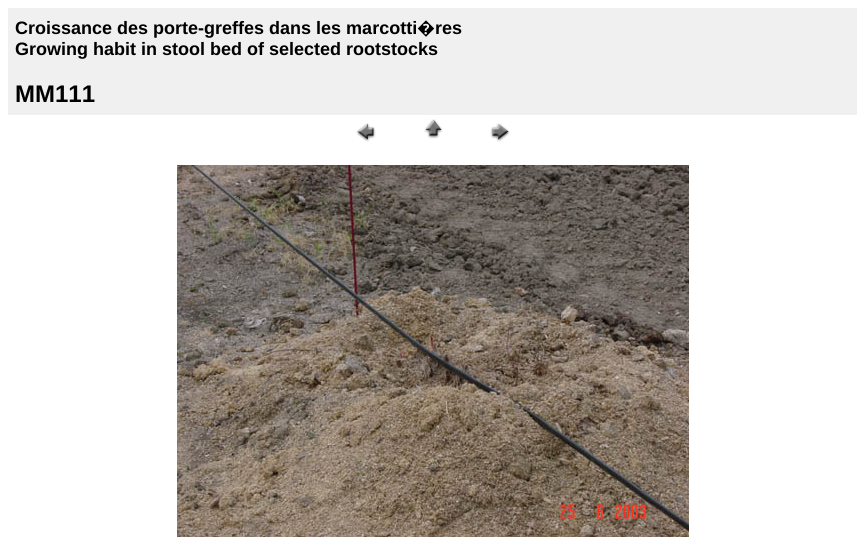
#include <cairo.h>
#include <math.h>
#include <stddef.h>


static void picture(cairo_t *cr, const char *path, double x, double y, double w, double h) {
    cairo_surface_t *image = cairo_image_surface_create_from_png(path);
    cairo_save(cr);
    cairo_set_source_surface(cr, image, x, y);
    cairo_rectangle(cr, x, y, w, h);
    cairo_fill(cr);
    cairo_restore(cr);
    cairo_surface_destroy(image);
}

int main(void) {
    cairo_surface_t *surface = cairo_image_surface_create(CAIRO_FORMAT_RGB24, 865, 537);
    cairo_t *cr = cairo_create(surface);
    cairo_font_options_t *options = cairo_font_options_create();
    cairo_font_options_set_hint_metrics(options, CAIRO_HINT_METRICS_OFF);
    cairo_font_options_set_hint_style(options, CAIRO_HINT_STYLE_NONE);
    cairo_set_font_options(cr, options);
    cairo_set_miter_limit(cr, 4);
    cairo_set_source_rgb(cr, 1, 1, 1);
    cairo_paint(cr);
    cairo_set_source_rgb(cr, 0.941, 0.941, 0.941);
    cairo_rectangle(cr, 8, 8, 849, 107);
    cairo_fill(cr);
    cairo_select_font_face(cr, "Liberation Sans", CAIRO_FONT_SLANT_NORMAL, CAIRO_FONT_WEIGHT_BOLD);
    cairo_set_font_size(cr, 18);
    cairo_set_source_rgb(cr, 0, 0, 0);
    cairo_move_to(cr, 15, 34);
    cairo_show_text(cr, "Croissance des porte-greffes dans les marcotti");
    cairo_select_font_face(cr, "Noto Sans Black", CAIRO_FONT_SLANT_NORMAL, CAIRO_FONT_WEIGHT_NORMAL);
    cairo_move_to(cr, 417, 34);
    cairo_show_text(cr, "�");
    cairo_select_font_face(cr, "Liberation Sans", CAIRO_FONT_SLANT_NORMAL, CAIRO_FONT_WEIGHT_BOLD);
    cairo_move_to(cr, 435, 34);
    cairo_show_text(cr, "res");
    cairo_move_to(cr, 15, 55);
    cairo_show_text(cr, "Growing habit in stool bed of selected rootstocks");
    cairo_set_font_size(cr, 24);
    cairo_move_to(cr, 15, 102);
    cairo_show_text(cr, "MM111");
    picture(cr, "img1.png", 356, 123, 20, 19);
    picture(cr, "img2.png", 424, 119, 19, 20);
    picture(cr, "img3.png", 490, 123, 20, 19);
    picture(cr, "img4.png", 177, 165, 512, 372);
    cairo_surface_write_to_png(surface, "page.png");
    cairo_font_options_destroy(options);
    cairo_destroy(cr);
    cairo_surface_destroy(surface);
    return 0;
}
